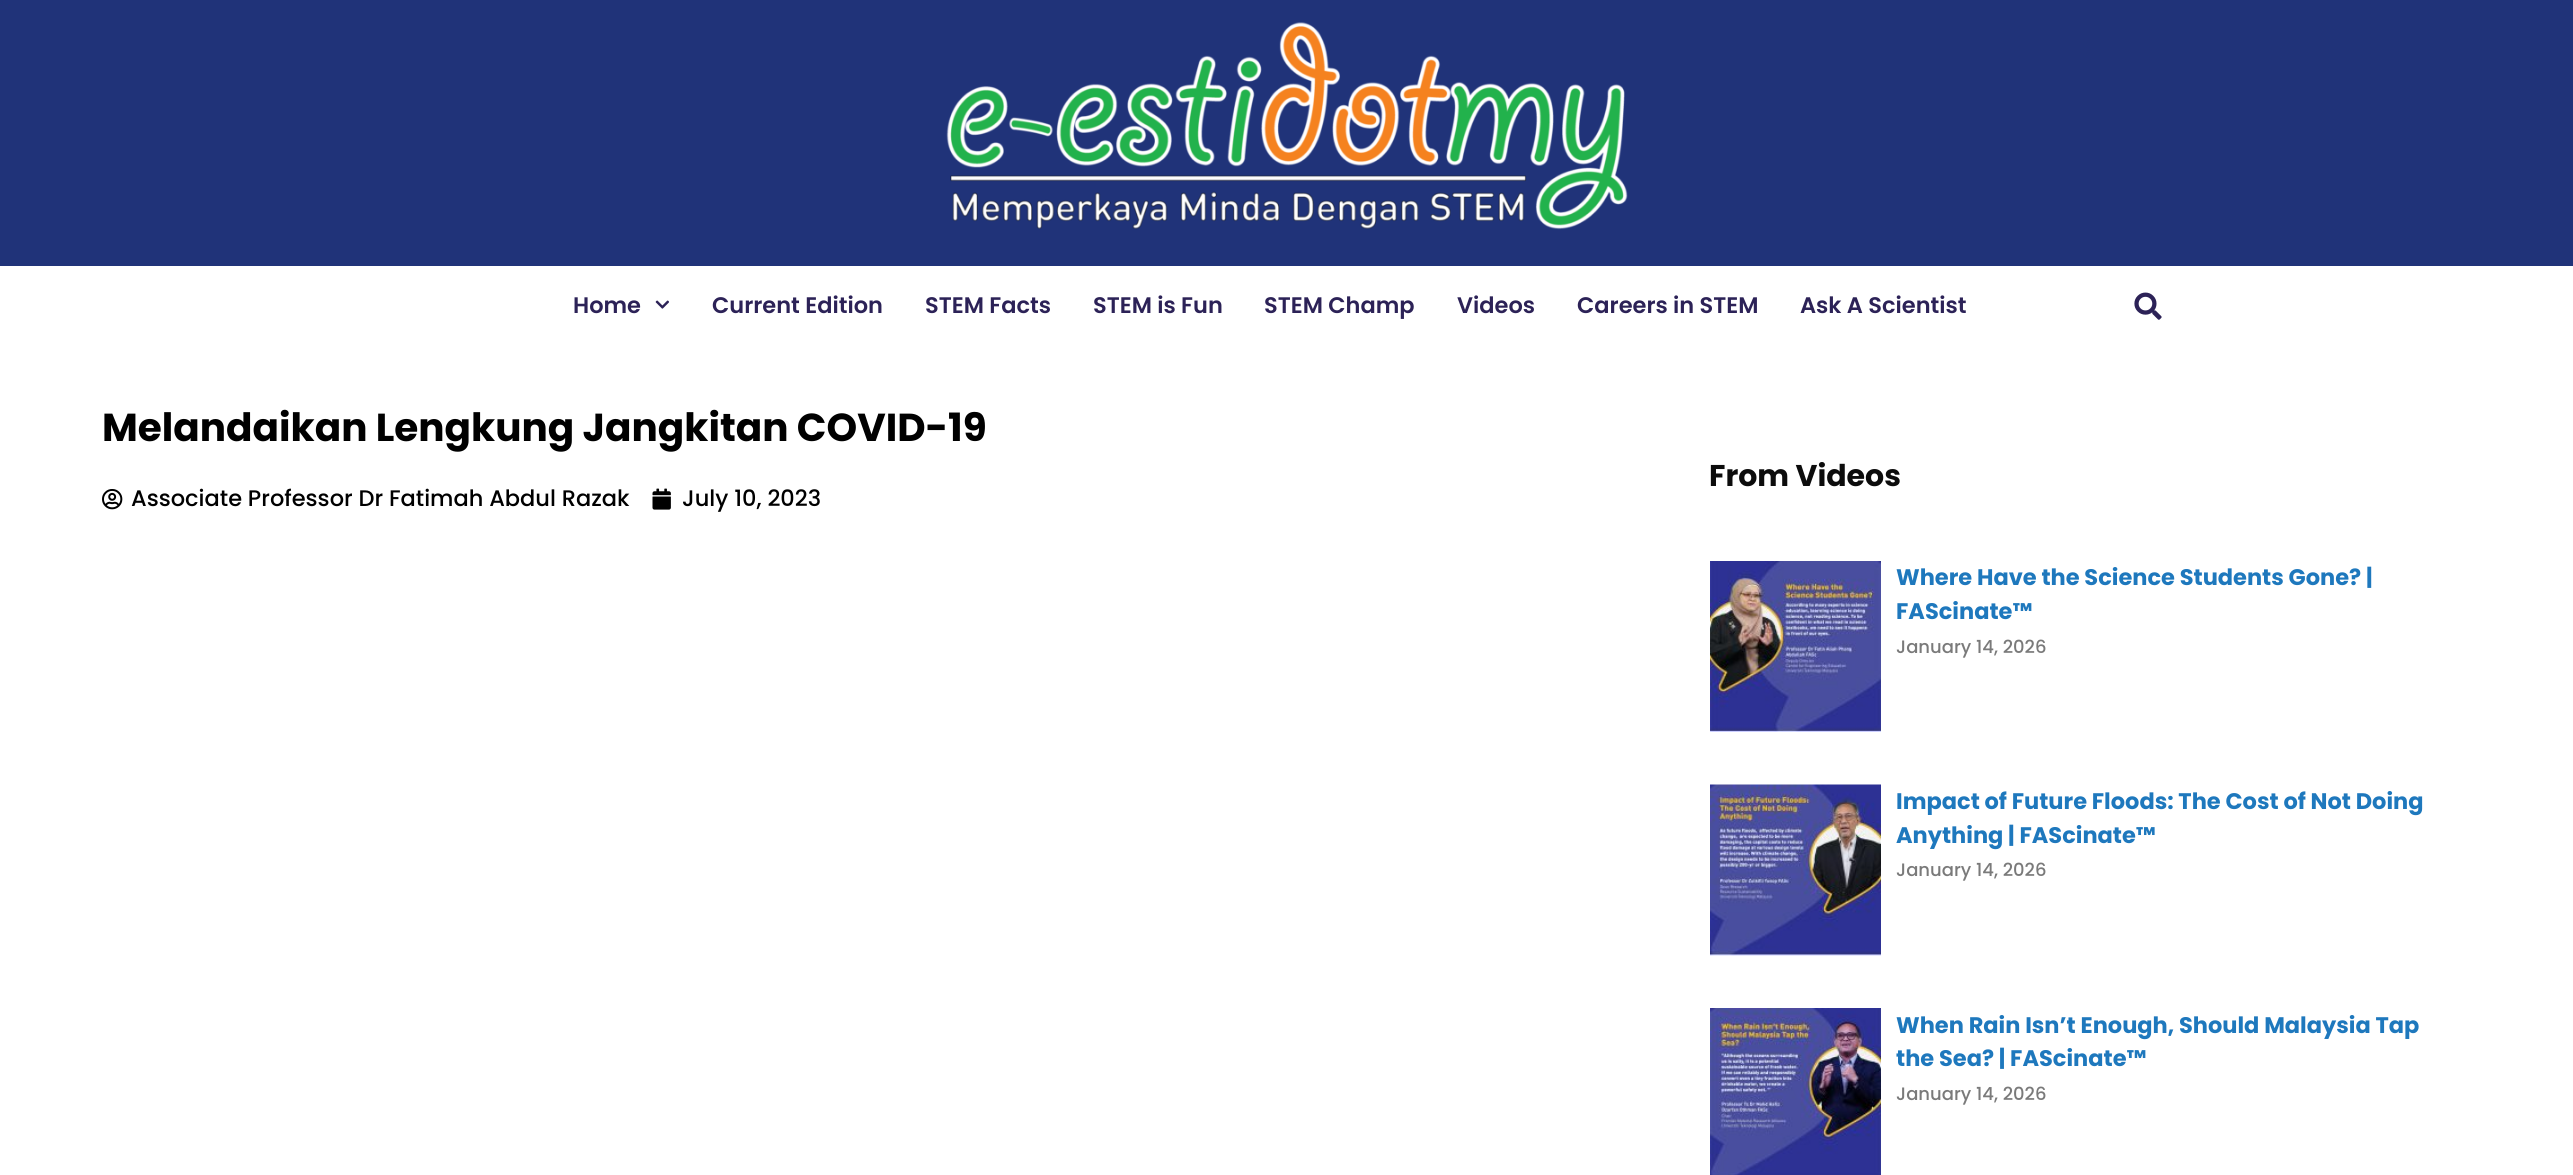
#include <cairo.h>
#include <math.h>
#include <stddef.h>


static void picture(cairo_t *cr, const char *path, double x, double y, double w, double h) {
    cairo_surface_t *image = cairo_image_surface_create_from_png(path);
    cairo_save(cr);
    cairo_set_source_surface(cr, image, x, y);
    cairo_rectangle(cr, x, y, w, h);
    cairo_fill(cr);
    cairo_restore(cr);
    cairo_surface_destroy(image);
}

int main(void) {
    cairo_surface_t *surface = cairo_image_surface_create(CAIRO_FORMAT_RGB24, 2573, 1175);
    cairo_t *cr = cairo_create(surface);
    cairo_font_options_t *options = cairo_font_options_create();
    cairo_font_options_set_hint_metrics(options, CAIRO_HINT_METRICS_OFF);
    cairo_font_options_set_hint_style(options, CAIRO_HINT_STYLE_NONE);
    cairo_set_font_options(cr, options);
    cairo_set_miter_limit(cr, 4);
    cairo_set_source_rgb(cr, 1, 1, 1);
    cairo_paint(cr);
    cairo_set_source_rgb(cr, 0.125, 0.2, 0.475);
    cairo_rectangle(cr, 0, 0, 2573, 266);
    cairo_fill(cr);
    picture(cr, "img1.png", 946, 22, 682, 208);
    cairo_select_font_face(cr, "Poppins SemiBold", CAIRO_FONT_SLANT_NORMAL, CAIRO_FONT_WEIGHT_NORMAL);
    cairo_set_font_size(cr, 22.5);
    cairo_set_source_rgb(cr, 0.173, 0.133, 0.341);
    cairo_move_to(cr, 573, 313);
    cairo_show_text(cr, "Home");
    picture(cr, "img2.png", 655, 300, 14, 9);
    cairo_move_to(cr, 712, 313);
    cairo_show_text(cr, "Current Edition");
    cairo_move_to(cr, 925, 313);
    cairo_show_text(cr, "STEM Facts");
    cairo_move_to(cr, 1093, 313);
    cairo_show_text(cr, "STEM is Fun");
    cairo_move_to(cr, 1264, 313);
    cairo_show_text(cr, "STEM Champ");
    cairo_move_to(cr, 1457, 313);
    cairo_show_text(cr, "Videos");
    cairo_move_to(cr, 1577, 313);
    cairo_show_text(cr, "Careers in STEM");
    cairo_move_to(cr, 1800, 313);
    cairo_show_text(cr, "Ask A Scientist");
    picture(cr, "img3.png", 2134, 292, 28, 28);
    cairo_select_font_face(cr, "Poppins", CAIRO_FONT_SLANT_NORMAL, CAIRO_FONT_WEIGHT_BOLD);
    cairo_set_font_size(cr, 39);
    cairo_set_source_rgb(cr, 0, 0, 0);
    cairo_move_to(cr, 102, 441);
    cairo_show_text(cr, "Melandaikan Lengkung Jangkitan COVID-19");
    picture(cr, "img4.png", 102, 489, 21, 21);
    cairo_select_font_face(cr, "Poppins Medium", CAIRO_FONT_SLANT_NORMAL, CAIRO_FONT_WEIGHT_NORMAL);
    cairo_set_font_size(cr, 22.5);
    cairo_move_to(cr, 131, 506);
    cairo_show_text(cr, "Associate Professor Dr Fatimah Abdul Razak");
    picture(cr, "img5.png", 652, 488, 19, 22);
    cairo_move_to(cr, 682, 506);
    cairo_show_text(cr, "July 10, 2023");
    cairo_select_font_face(cr, "Poppins", CAIRO_FONT_SLANT_NORMAL, CAIRO_FONT_WEIGHT_BOLD);
    cairo_set_font_size(cr, 30);
    cairo_set_source_rgb(cr, 0.047, 0.047, 0.047);
    cairo_move_to(cr, 1709, 486);
    cairo_show_text(cr, "From Videos");
    picture(cr, "img6.png", 1710, 561, 171, 171);
    cairo_set_font_size(cr, 22.5);
    cairo_set_source_rgb(cr, 0.118, 0.471, 0.741);
    cairo_move_to(cr, 1896, 585);
    cairo_show_text(cr, "Where Have the Science Students Gone? |");
    cairo_move_to(cr, 1896, 619);
    cairo_show_text(cr, "FAScinate™");
    cairo_select_font_face(cr, "Poppins Medium", CAIRO_FONT_SLANT_NORMAL, CAIRO_FONT_WEIGHT_NORMAL);
    cairo_set_font_size(cr, 18);
    cairo_set_source_rgb(cr, 0.478, 0.478, 0.478);
    cairo_move_to(cr, 1896, 653);
    cairo_show_text(cr, "January 14, 2026");
    picture(cr, "img7.png", 1710, 784, 171, 172);
    cairo_select_font_face(cr, "Poppins", CAIRO_FONT_SLANT_NORMAL, CAIRO_FONT_WEIGHT_BOLD);
    cairo_set_font_size(cr, 22.5);
    cairo_set_source_rgb(cr, 0.118, 0.471, 0.741);
    cairo_move_to(cr, 1896, 809);
    cairo_show_text(cr, "Impact of Future Floods: The Cost of Not Doing");
    cairo_move_to(cr, 1896, 843);
    cairo_show_text(cr, "Anything | FAScinate™");
    cairo_select_font_face(cr, "Poppins Medium", CAIRO_FONT_SLANT_NORMAL, CAIRO_FONT_WEIGHT_NORMAL);
    cairo_set_font_size(cr, 18);
    cairo_set_source_rgb(cr, 0.478, 0.478, 0.478);
    cairo_move_to(cr, 1896, 876);
    cairo_show_text(cr, "January 14, 2026");
    picture(cr, "img8.png", 1710, 1008, 171, 167);
    cairo_select_font_face(cr, "Poppins", CAIRO_FONT_SLANT_NORMAL, CAIRO_FONT_WEIGHT_BOLD);
    cairo_set_font_size(cr, 22.5);
    cairo_set_source_rgb(cr, 0.118, 0.471, 0.741);
    cairo_move_to(cr, 1896, 1033);
    cairo_show_text(cr, "When Rain Isn’t Enough, Should Malaysia Tap");
    cairo_move_to(cr, 1896, 1066);
    cairo_show_text(cr, "the Sea? | FAScinate™");
    cairo_select_font_face(cr, "Poppins Medium", CAIRO_FONT_SLANT_NORMAL, CAIRO_FONT_WEIGHT_NORMAL);
    cairo_set_font_size(cr, 18);
    cairo_set_source_rgb(cr, 0.478, 0.478, 0.478);
    cairo_move_to(cr, 1896, 1100);
    cairo_show_text(cr, "January 14, 2026");
    cairo_surface_write_to_png(surface, "page.png");
    cairo_font_options_destroy(options);
    cairo_destroy(cr);
    cairo_surface_destroy(surface);
    return 0;
}
